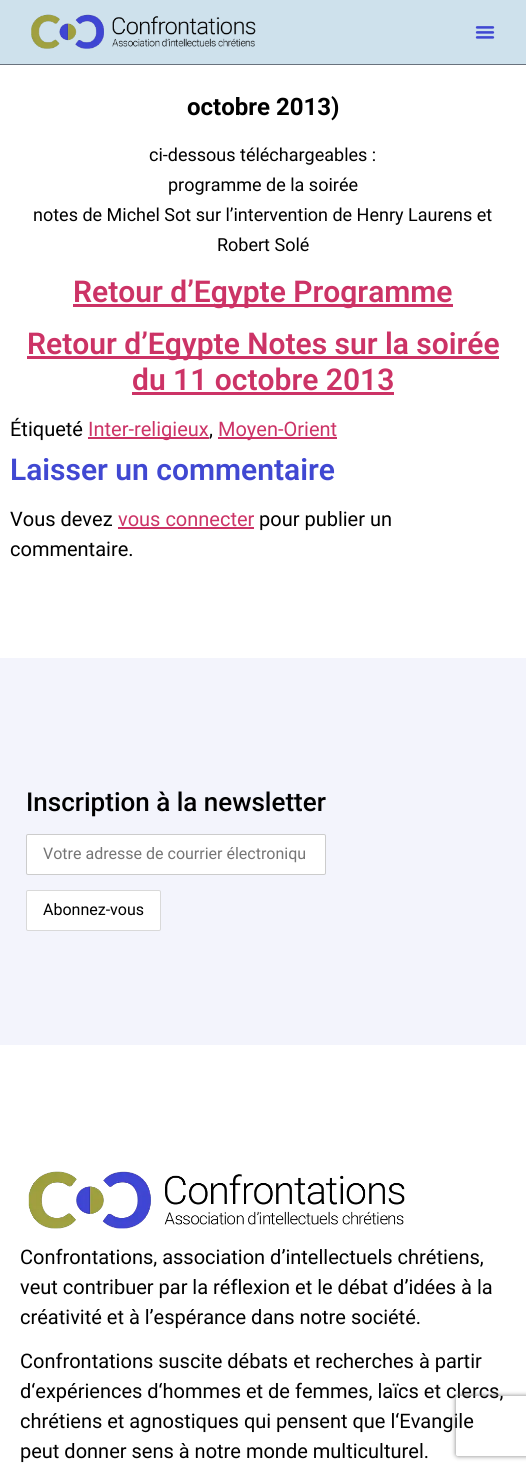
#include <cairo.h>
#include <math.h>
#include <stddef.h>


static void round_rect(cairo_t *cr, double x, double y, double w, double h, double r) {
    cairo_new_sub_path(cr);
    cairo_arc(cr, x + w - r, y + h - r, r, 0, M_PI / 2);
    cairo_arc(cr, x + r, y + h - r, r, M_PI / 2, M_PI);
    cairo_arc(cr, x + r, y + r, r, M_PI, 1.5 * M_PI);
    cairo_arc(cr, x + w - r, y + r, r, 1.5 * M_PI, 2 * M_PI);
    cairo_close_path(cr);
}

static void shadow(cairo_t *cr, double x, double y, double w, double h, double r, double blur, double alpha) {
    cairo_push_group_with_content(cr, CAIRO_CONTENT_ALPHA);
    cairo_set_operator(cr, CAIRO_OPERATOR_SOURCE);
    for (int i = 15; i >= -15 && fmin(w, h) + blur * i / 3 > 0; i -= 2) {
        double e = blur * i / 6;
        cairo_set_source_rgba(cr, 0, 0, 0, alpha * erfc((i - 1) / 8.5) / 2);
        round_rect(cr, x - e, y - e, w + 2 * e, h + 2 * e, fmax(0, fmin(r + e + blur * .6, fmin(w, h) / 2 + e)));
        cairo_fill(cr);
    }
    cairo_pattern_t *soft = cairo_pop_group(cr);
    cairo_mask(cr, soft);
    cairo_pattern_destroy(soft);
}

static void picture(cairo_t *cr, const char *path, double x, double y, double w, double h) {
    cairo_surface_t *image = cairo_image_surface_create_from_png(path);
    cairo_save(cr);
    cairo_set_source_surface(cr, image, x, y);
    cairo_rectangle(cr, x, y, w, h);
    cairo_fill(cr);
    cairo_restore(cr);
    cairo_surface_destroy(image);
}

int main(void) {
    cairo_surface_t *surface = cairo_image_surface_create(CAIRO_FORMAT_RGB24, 526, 1470);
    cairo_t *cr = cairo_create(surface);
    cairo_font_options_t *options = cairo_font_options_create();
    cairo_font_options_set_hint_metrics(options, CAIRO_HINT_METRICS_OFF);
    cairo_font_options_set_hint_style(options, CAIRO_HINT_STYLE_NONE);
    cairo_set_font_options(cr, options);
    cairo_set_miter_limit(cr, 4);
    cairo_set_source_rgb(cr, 1, 1, 1);
    cairo_paint(cr);
    cairo_set_source_rgb(cr, 0.808, 0.882, 0.925);
    cairo_rectangle(cr, 0, 0, 526, 64);
    cairo_fill(cr);
    cairo_set_source_rgb(cr, 0.412, 0.447, 0.49);
    cairo_rectangle(cr, 0, 64, 526, 1);
    cairo_fill(cr);
    picture(cr, "img1.png", 31, 14, 225, 35);
    picture(cr, "img2.png", 475, 26, 20, 13);
    cairo_select_font_face(cr, "Roboto", CAIRO_FONT_SLANT_NORMAL, CAIRO_FONT_WEIGHT_BOLD);
    cairo_set_font_size(cr, 24);
    cairo_set_source_rgb(cr, 0, 0, 0);
    cairo_move_to(cr, 187, 115);
    cairo_show_text(cr, "octobre 2013)");
    cairo_select_font_face(cr, "Roboto", CAIRO_FONT_SLANT_NORMAL, CAIRO_FONT_WEIGHT_NORMAL);
    cairo_set_font_size(cr, 18);
    cairo_move_to(cr, 149, 161);
    cairo_show_text(cr, "ci-dessous téléchargeables :");
    cairo_move_to(cr, 168, 191);
    cairo_show_text(cr, "programme de la soirée");
    cairo_move_to(cr, 33, 221);
    cairo_show_text(cr, "notes de Michel Sot sur l’intervention de Henry Laurens et");
    cairo_move_to(cr, 217, 251);
    cairo_show_text(cr, "Robert Solé");
    cairo_set_source_rgb(cr, 0.8, 0.2, 0.4);
    cairo_rectangle(cr, 73, 304, 380, 3);
    cairo_fill(cr);
    cairo_select_font_face(cr, "Roboto SemiBold", CAIRO_FONT_SLANT_NORMAL, CAIRO_FONT_WEIGHT_NORMAL);
    cairo_set_font_size(cr, 30);
    cairo_move_to(cr, 73, 302);
    cairo_show_text(cr, "Retour d’Egypte Programme");
    cairo_rectangle(cr, 27, 356, 472, 3);
    cairo_fill(cr);
    cairo_move_to(cr, 27, 354);
    cairo_show_text(cr, "Retour d’Egypte Notes sur la soirée");
    cairo_move_to(cr, 132, 390);
    cairo_show_text(cr, "du 11 octobre 2013");
    cairo_rectangle(cr, 132, 392, 262, 3);
    cairo_fill(cr);
    cairo_select_font_face(cr, "Roboto", CAIRO_FONT_SLANT_NORMAL, CAIRO_FONT_WEIGHT_NORMAL);
    cairo_set_font_size(cr, 20);
    cairo_set_source_rgb(cr, 0, 0, 0);
    cairo_move_to(cr, 10, 436);
    cairo_show_text(cr, "Étiqueté");
    cairo_set_source_rgb(cr, 0.8, 0.2, 0.4);
    cairo_rectangle(cr, 88, 437, 121, 2);
    cairo_fill(cr);
    cairo_move_to(cr, 88, 436);
    cairo_show_text(cr, "Inter-religieux");
    cairo_set_source_rgb(cr, 0, 0, 0);
    cairo_move_to(cr, 209, 436);
    cairo_show_text(cr, ",");
    cairo_set_source_rgb(cr, 0.8, 0.2, 0.4);
    cairo_rectangle(cr, 218, 437, 119, 2);
    cairo_fill(cr);
    cairo_move_to(cr, 218, 436);
    cairo_show_text(cr, "Moyen-Orient");
    cairo_select_font_face(cr, "Roboto SemiBold", CAIRO_FONT_SLANT_NORMAL, CAIRO_FONT_WEIGHT_NORMAL);
    cairo_set_font_size(cr, 30);
    cairo_set_source_rgb(cr, 0.251, 0.282, 0.824);
    cairo_move_to(cr, 10, 480);
    cairo_show_text(cr, "Laisser un commentaire");
    cairo_select_font_face(cr, "Roboto", CAIRO_FONT_SLANT_NORMAL, CAIRO_FONT_WEIGHT_NORMAL);
    cairo_set_font_size(cr, 20);
    cairo_set_source_rgb(cr, 0, 0, 0);
    cairo_move_to(cr, 10, 526);
    cairo_show_text(cr, "Vous devez");
    cairo_set_source_rgb(cr, 0.8, 0.2, 0.4);
    cairo_move_to(cr, 118, 526);
    cairo_show_text(cr, "vous connecter");
    cairo_rectangle(cr, 118, 527, 136, 2);
    cairo_fill(cr);
    cairo_set_source_rgb(cr, 0, 0, 0);
    cairo_move_to(cr, 259, 526);
    cairo_show_text(cr, "pour publier un");
    cairo_move_to(cr, 10, 556);
    cairo_show_text(cr, "commentaire.");
    cairo_set_source_rgb(cr, 0.953, 0.957, 0.988);
    cairo_rectangle(cr, 0, 658, 526, 387);
    cairo_fill(cr);
    cairo_select_font_face(cr, "Roboto Medium", CAIRO_FONT_SLANT_NORMAL, CAIRO_FONT_WEIGHT_NORMAL);
    cairo_set_font_size(cr, 26);
    cairo_set_source_rgb(cr, 0, 0, 0);
    cairo_move_to(cr, 26, 811);
    cairo_show_text(cr, "Inscription à la newsletter");
    cairo_set_source_rgb(cr, 1, 1, 1);
    round_rect(cr, 26.5, 834.5, 299, 40, 1.5);
    cairo_fill_preserve(cr);
    cairo_set_source_rgb(cr, 0.8, 0.8, 0.8);
    cairo_set_line_width(cr, 1);
    cairo_stroke(cr);
    cairo_select_font_face(cr, "Roboto", CAIRO_FONT_SLANT_NORMAL, CAIRO_FONT_WEIGHT_NORMAL);
    cairo_set_font_size(cr, 16);
    cairo_set_source_rgb(cr, 0.459, 0.459, 0.459);
    cairo_move_to(cr, 43, 859);
    cairo_show_text(cr, "Votre adresse de courrier électroniqu");
    cairo_set_source_rgb(cr, 1, 1, 1);
    round_rect(cr, 26.5, 890.5, 134, 40, 1.5);
    cairo_fill_preserve(cr);
    cairo_set_source_rgb(cr, 0.851, 0.851, 0.851);
    cairo_stroke(cr);
    cairo_set_source_rgb(cr, 0, 0, 0);
    cairo_move_to(cr, 43, 915);
    cairo_show_text(cr, "Abonnez-vous");
    picture(cr, "img3.png", 28, 1171, 377, 58);
    cairo_set_font_size(cr, 20);
    cairo_move_to(cr, 20, 1264);
    cairo_show_text(cr, "Confrontations, association d’intellectuels chrétiens,");
    cairo_move_to(cr, 20, 1294);
    cairo_show_text(cr, "veut contribuer par la réflexion et le débat d’idées à la");
    cairo_move_to(cr, 20, 1324);
    cairo_show_text(cr, "créativité et à l’espérance dans notre société.");
    cairo_move_to(cr, 20, 1368);
    cairo_show_text(cr, "Confrontations suscite débats et recherches à partir");
    cairo_move_to(cr, 20, 1398);
    cairo_show_text(cr, "d‘expériences d‘hommes et de femmes, laïcs et clercs,");
    cairo_move_to(cr, 20, 1428);
    cairo_show_text(cr, "chrétiens et agnostiques qui pensent que l‘Evangile");
    cairo_move_to(cr, 20, 1458);
    cairo_show_text(cr, "peut donner sens à notre monde multiculturel.");
    cairo_save(cr);
    cairo_set_fill_rule(cr, CAIRO_FILL_RULE_EVEN_ODD);
    cairo_new_path(cr);
    cairo_move_to(cr, 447, 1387);
    cairo_line_to(cr, 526, 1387);
    cairo_line_to(cr, 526, 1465);
    cairo_line_to(cr, 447, 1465);
    cairo_close_path(cr);
    cairo_move_to(cr, 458, 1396);
    cairo_line_to(cr, 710, 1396);
    cairo_curve_to(cr, 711, 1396, 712, 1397, 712, 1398);
    cairo_line_to(cr, 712, 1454);
    cairo_curve_to(cr, 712, 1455, 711, 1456, 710, 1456);
    cairo_line_to(cr, 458, 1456);
    cairo_curve_to(cr, 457, 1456, 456, 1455, 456, 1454);
    cairo_line_to(cr, 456, 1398);
    cairo_curve_to(cr, 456, 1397, 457, 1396, 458, 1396);
    cairo_close_path(cr);
    cairo_clip(cr);
    cairo_set_source_rgb(cr, 0.502, 0.502, 0.502);
    shadow(cr, 456, 1396, 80, 60, 2, 2.5, 1);
    cairo_restore(cr);
    cairo_surface_write_to_png(surface, "page.png");
    cairo_font_options_destroy(options);
    cairo_destroy(cr);
    cairo_surface_destroy(surface);
    return 0;
}
